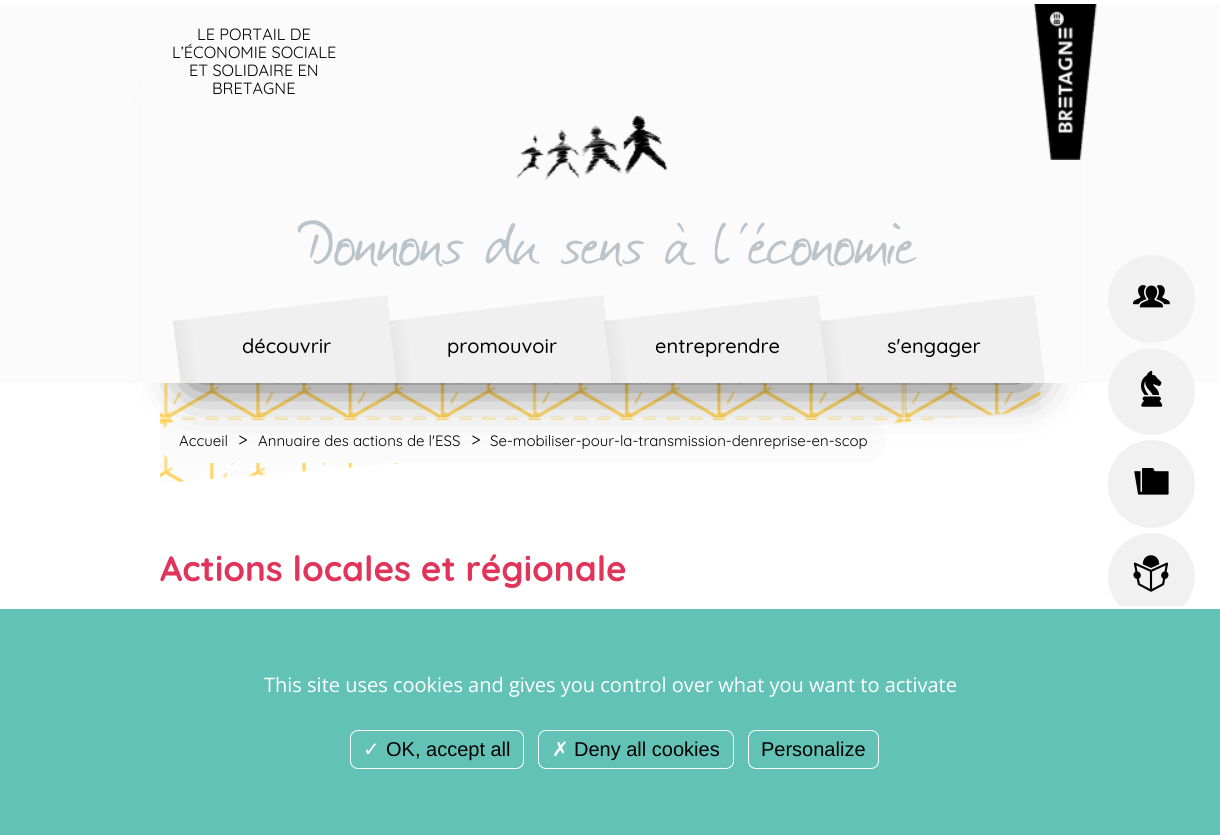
#include <cairo.h>
#include <math.h>
#include <stddef.h>


static void round_rect(cairo_t *cr, double x, double y, double w, double h, double r) {
    cairo_new_sub_path(cr);
    cairo_arc(cr, x + w - r, y + h - r, r, 0, M_PI / 2);
    cairo_arc(cr, x + r, y + h - r, r, M_PI / 2, M_PI);
    cairo_arc(cr, x + r, y + r, r, M_PI, 1.5 * M_PI);
    cairo_arc(cr, x + w - r, y + r, r, 1.5 * M_PI, 2 * M_PI);
    cairo_close_path(cr);
}

static void shadow(cairo_t *cr, double x, double y, double w, double h, double r, double blur, double alpha) {
    cairo_push_group_with_content(cr, CAIRO_CONTENT_ALPHA);
    cairo_set_operator(cr, CAIRO_OPERATOR_SOURCE);
    for (int i = 15; i >= -15 && fmin(w, h) + blur * i / 3 > 0; i -= 2) {
        double e = blur * i / 6;
        cairo_set_source_rgba(cr, 0, 0, 0, alpha * erfc((i - 1) / 8.5) / 2);
        round_rect(cr, x - e, y - e, w + 2 * e, h + 2 * e, fmax(0, fmin(r + e + blur * .6, fmin(w, h) / 2 + e)));
        cairo_fill(cr);
    }
    cairo_pattern_t *soft = cairo_pop_group(cr);
    cairo_mask(cr, soft);
    cairo_pattern_destroy(soft);
}

static void picture(cairo_t *cr, const char *path, double x, double y, double w, double h) {
    cairo_surface_t *image = cairo_image_surface_create_from_png(path);
    cairo_save(cr);
    cairo_set_source_surface(cr, image, x, y);
    cairo_rectangle(cr, x, y, w, h);
    cairo_fill(cr);
    cairo_restore(cr);
    cairo_surface_destroy(image);
}

int main(void) {
    cairo_surface_t *surface = cairo_image_surface_create(CAIRO_FORMAT_RGB24, 1220, 835);
    cairo_t *cr = cairo_create(surface);
    cairo_font_options_t *options = cairo_font_options_create();
    cairo_font_options_set_hint_metrics(options, CAIRO_HINT_METRICS_OFF);
    cairo_font_options_set_hint_style(options, CAIRO_HINT_STYLE_NONE);
    cairo_set_font_options(cr, options);
    cairo_set_miter_limit(cr, 4);
    cairo_pattern_t *gradient;
    cairo_set_source_rgb(cr, 1, 1, 1);
    cairo_paint(cr);
    cairo_set_source_rgb(cr, 0.984, 0.984, 0.984);
    cairo_rectangle(cr, 0, 4, 1220, 379);
    cairo_fill(cr);
    picture(cr, "img3.png", 160, 383, 882, 100);
    round_rect(cr, 160, 420, 726, 43, 21.5);
    cairo_fill(cr);
    cairo_save(cr);
    cairo_set_fill_rule(cr, CAIRO_FILL_RULE_EVEN_ODD);
    cairo_new_path(cr);
    cairo_move_to(cr, 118, 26);
    cairo_line_to(cr, 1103, 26);
    cairo_line_to(cr, 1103, 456);
    cairo_line_to(cr, 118, 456);
    cairo_close_path(cr);
    cairo_move_to(cr, 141, 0);
    cairo_line_to(cr, 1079, 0);
    cairo_line_to(cr, 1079, 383);
    cairo_line_to(cr, 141, 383);
    cairo_close_path(cr);
    cairo_clip(cr);
    cairo_set_source_rgb(cr, 0, 0, 0);
    shadow(cr, 193, 101, 835, 280, 0, 24.5, 0.75);
    cairo_restore(cr);
    cairo_select_font_face(cr, "Quicksand", CAIRO_FONT_SLANT_NORMAL, CAIRO_FONT_WEIGHT_NORMAL);
    cairo_set_font_size(cr, 16.25);
    cairo_set_source_rgb(cr, 0, 0, 0);
    cairo_move_to(cr, 197, 40);
    cairo_show_text(cr, "LE PORTAIL DE");
    cairo_move_to(cr, 172, 58);
    cairo_show_text(cr, "L’ÉCONOMIE SOCIALE");
    cairo_move_to(cr, 189, 76);
    cairo_show_text(cr, "ET SOLIDAIRE EN");
    cairo_move_to(cr, 212, 94);
    cairo_show_text(cr, "BRETAGNE");
    picture(cr, "img1.png", 516, 115, 152, 65);
    cairo_select_font_face(cr, "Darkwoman", CAIRO_FONT_SLANT_NORMAL, CAIRO_FONT_WEIGHT_NORMAL);
    cairo_set_font_size(cr, 75);
    cairo_set_source_rgb(cr, 0.733, 0.769, 0.796);
    cairo_move_to(cr, 305, 264);
    cairo_show_text(cr, "Donnons du sens à l'économie");
    cairo_save(cr);
    cairo_rectangle(cr, 154, 289, 312, 94);
    cairo_clip(cr);
    gradient = cairo_pattern_create_linear(180, 373, 394, 347);
    cairo_pattern_add_color_stop_rgba(gradient, 0, 0.902, 0.902, 0.902, 1);
    cairo_pattern_add_color_stop_rgba(gradient, 0.09, 0.941, 0.941, 0.941, 1);
    cairo_pattern_add_color_stop_rgba(gradient, 1, 0.941, 0.941, 0.941, 1);
    cairo_set_source(cr, gradient);
    cairo_pattern_destroy(gradient);
    cairo_new_path(cr);
    cairo_move_to(cr, 173, 321);
    cairo_line_to(cr, 387, 295);
    cairo_line_to(cr, 400, 399);
    cairo_line_to(cr, 186, 425);
    cairo_close_path(cr);
    cairo_fill(cr);
    cairo_restore(cr);
    cairo_select_font_face(cr, "Quicksand Medium", CAIRO_FONT_SLANT_NORMAL, CAIRO_FONT_WEIGHT_NORMAL);
    cairo_set_font_size(cr, 20);
    cairo_set_source_rgb(cr, 0, 0, 0);
    cairo_move_to(cr, 242, 353);
    cairo_show_text(cr, "découvrir");
    cairo_save(cr);
    cairo_rectangle(cr, 370, 289, 313, 94);
    cairo_clip(cr);
    gradient = cairo_pattern_create_linear(395, 373, 609, 347);
    cairo_pattern_add_color_stop_rgba(gradient, 0, 0.902, 0.902, 0.902, 1);
    cairo_pattern_add_color_stop_rgba(gradient, 0.09, 0.941, 0.941, 0.941, 1);
    cairo_pattern_add_color_stop_rgba(gradient, 1, 0.941, 0.941, 0.941, 1);
    cairo_set_source(cr, gradient);
    cairo_pattern_destroy(gradient);
    cairo_new_path(cr);
    cairo_move_to(cr, 389, 321);
    cairo_line_to(cr, 603, 295);
    cairo_line_to(cr, 616, 399);
    cairo_line_to(cr, 402, 425);
    cairo_close_path(cr);
    cairo_fill(cr);
    cairo_restore(cr);
    cairo_move_to(cr, 447, 353);
    cairo_show_text(cr, "promouvoir");
    cairo_save(cr);
    cairo_rectangle(cr, 585, 289, 313, 94);
    cairo_clip(cr);
    gradient = cairo_pattern_create_linear(611, 373, 825, 347);
    cairo_pattern_add_color_stop_rgba(gradient, 0, 0.902, 0.902, 0.902, 1);
    cairo_pattern_add_color_stop_rgba(gradient, 0.09, 0.941, 0.941, 0.941, 1);
    cairo_pattern_add_color_stop_rgba(gradient, 1, 0.941, 0.941, 0.941, 1);
    cairo_set_source(cr, gradient);
    cairo_pattern_destroy(gradient);
    cairo_new_path(cr);
    cairo_move_to(cr, 604, 321);
    cairo_line_to(cr, 818, 295);
    cairo_line_to(cr, 831, 399);
    cairo_line_to(cr, 617, 425);
    cairo_close_path(cr);
    cairo_fill(cr);
    cairo_restore(cr);
    cairo_move_to(cr, 655, 353);
    cairo_show_text(cr, "entreprendre");
    cairo_save(cr);
    cairo_rectangle(cr, 801, 289, 313, 94);
    cairo_clip(cr);
    gradient = cairo_pattern_create_linear(826, 373, 1040, 347);
    cairo_pattern_add_color_stop_rgba(gradient, 0, 0.902, 0.902, 0.902, 1);
    cairo_pattern_add_color_stop_rgba(gradient, 0.09, 0.941, 0.941, 0.941, 1);
    cairo_pattern_add_color_stop_rgba(gradient, 1, 0.941, 0.941, 0.941, 1);
    cairo_set_source(cr, gradient);
    cairo_pattern_destroy(gradient);
    cairo_new_path(cr);
    cairo_move_to(cr, 820, 321);
    cairo_line_to(cr, 1034, 295);
    cairo_line_to(cr, 1047, 399);
    cairo_line_to(cr, 833, 425);
    cairo_close_path(cr);
    cairo_fill(cr);
    cairo_restore(cr);
    cairo_move_to(cr, 887, 353);
    cairo_show_text(cr, "s'engager");
    picture(cr, "img2.png", 1033, 4, 64, 156);
    cairo_select_font_face(cr, "Quicksand", CAIRO_FONT_SLANT_NORMAL, CAIRO_FONT_WEIGHT_NORMAL);
    cairo_set_font_size(cr, 15);
    cairo_move_to(cr, 179, 446);
    cairo_show_text(cr, "Accueil");
    cairo_set_font_size(cr, 18);
    cairo_move_to(cr, 238, 446);
    cairo_show_text(cr, ">");
    cairo_set_font_size(cr, 15);
    cairo_move_to(cr, 258, 446);
    cairo_show_text(cr, "Annuaire des actions de l'ESS");
    cairo_set_font_size(cr, 18);
    cairo_move_to(cr, 471, 446);
    cairo_show_text(cr, ">");
    cairo_set_font_size(cr, 15);
    cairo_move_to(cr, 490, 446);
    cairo_show_text(cr, "Se-mobiliser-pour-la-transmission-denreprise-en-scop");
    cairo_select_font_face(cr, "Quicksand", CAIRO_FONT_SLANT_NORMAL, CAIRO_FONT_WEIGHT_BOLD);
    cairo_set_font_size(cr, 35);
    cairo_set_source_rgb(cr, 0.878, 0.204, 0.353);
    cairo_move_to(cr, 160, 581);
    cairo_show_text(cr, "Actions locales et régionale");
    cairo_set_source_rgb(cr, 0.945, 0.945, 0.945);
    round_rect(cr, 1108, 255, 87, 88, 43.5);
    cairo_fill(cr);
    picture(cr, "img4.png", 1133, 285, 37, 23);
    cairo_arc(cr, 1151.5, 391.5, 43.5, 0, 2 * M_PI);
    cairo_fill(cr);
    picture(cr, "img5.png", 1141, 370, 22, 37);
    round_rect(cr, 1108, 440, 87, 88, 43.5);
    cairo_fill(cr);
    picture(cr, "img6.png", 1134, 468, 35, 27);
    cairo_arc(cr, 1151.5, 576.5, 43.5, 0, 2 * M_PI);
    cairo_fill(cr);
    picture(cr, "img7.png", 1133, 555, 36, 37);
    cairo_set_source_rgb(cr, 0.384, 0.761, 0.714);
    cairo_rectangle(cr, 0, 609, 1220, 226);
    cairo_fill(cr);
    cairo_set_source_rgb(cr, 1, 1, 1);
    cairo_rectangle(cr, 1120, 606, 63, 3);
    cairo_fill(cr);
    cairo_select_font_face(cr, "Open Sans", CAIRO_FONT_SLANT_NORMAL, CAIRO_FONT_WEIGHT_NORMAL);
    cairo_set_font_size(cr, 20);
    cairo_move_to(cr, 264, 692);
    cairo_show_text(cr, "This site uses cookies and gives you control over what you want to activate");
    round_rect(cr, 350.5, 730.5, 173, 38, 7.5);
    cairo_set_line_width(cr, 1);
    cairo_stroke(cr);
    cairo_select_font_face(cr, "DejaVu Sans", CAIRO_FONT_SLANT_NORMAL, CAIRO_FONT_WEIGHT_NORMAL);
    cairo_move_to(cr, 363, 756);
    cairo_show_text(cr, "✓");
    cairo_select_font_face(cr, "Liberation Sans", CAIRO_FONT_SLANT_NORMAL, CAIRO_FONT_WEIGHT_NORMAL);
    cairo_set_source_rgb(cr, 0, 0, 0);
    cairo_move_to(cr, 386, 756);
    cairo_show_text(cr, "OK, accept all");
    round_rect(cr, 538.5, 730.5, 195, 38, 7.5);
    cairo_set_source_rgb(cr, 1, 1, 1);
    cairo_stroke(cr);
    cairo_select_font_face(cr, "DejaVu Sans", CAIRO_FONT_SLANT_NORMAL, CAIRO_FONT_WEIGHT_NORMAL);
    cairo_move_to(cr, 552, 756);
    cairo_show_text(cr, "✗");
    cairo_select_font_face(cr, "Liberation Sans", CAIRO_FONT_SLANT_NORMAL, CAIRO_FONT_WEIGHT_NORMAL);
    cairo_set_source_rgb(cr, 0, 0, 0);
    cairo_move_to(cr, 574, 756);
    cairo_show_text(cr, "Deny all cookies");
    round_rect(cr, 748.5, 730.5, 130, 38, 7.5);
    cairo_set_source_rgb(cr, 1, 1, 1);
    cairo_stroke(cr);
    cairo_set_source_rgb(cr, 0, 0, 0);
    cairo_move_to(cr, 761, 756);
    cairo_show_text(cr, "Personalize");
    cairo_surface_write_to_png(surface, "page.png");
    cairo_font_options_destroy(options);
    cairo_destroy(cr);
    cairo_surface_destroy(surface);
    return 0;
}
